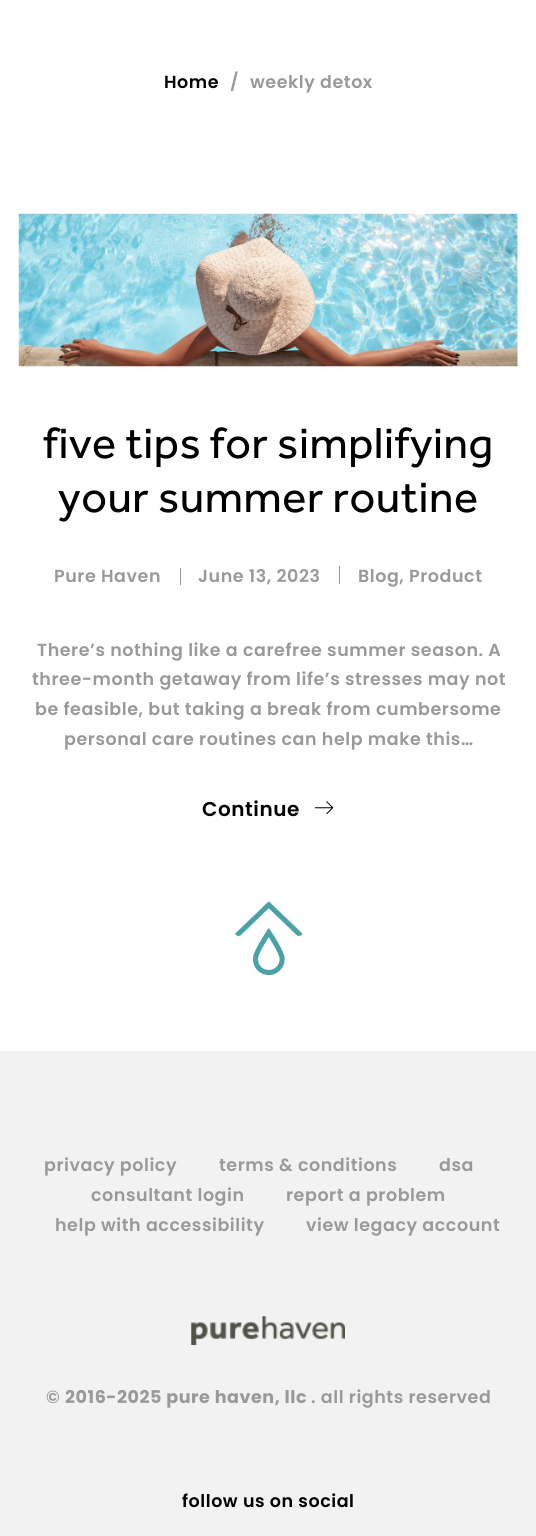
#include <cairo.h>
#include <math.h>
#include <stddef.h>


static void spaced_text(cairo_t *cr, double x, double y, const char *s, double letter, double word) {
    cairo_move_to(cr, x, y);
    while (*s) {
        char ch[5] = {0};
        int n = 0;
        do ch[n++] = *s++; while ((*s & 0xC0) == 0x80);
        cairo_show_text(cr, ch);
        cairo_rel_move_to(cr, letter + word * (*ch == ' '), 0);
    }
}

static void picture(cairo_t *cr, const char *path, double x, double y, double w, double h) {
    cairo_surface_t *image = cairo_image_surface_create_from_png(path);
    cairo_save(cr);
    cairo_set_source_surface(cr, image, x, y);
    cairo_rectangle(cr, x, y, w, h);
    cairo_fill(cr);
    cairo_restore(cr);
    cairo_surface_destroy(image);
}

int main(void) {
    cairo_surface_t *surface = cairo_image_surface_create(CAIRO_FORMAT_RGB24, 536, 1536);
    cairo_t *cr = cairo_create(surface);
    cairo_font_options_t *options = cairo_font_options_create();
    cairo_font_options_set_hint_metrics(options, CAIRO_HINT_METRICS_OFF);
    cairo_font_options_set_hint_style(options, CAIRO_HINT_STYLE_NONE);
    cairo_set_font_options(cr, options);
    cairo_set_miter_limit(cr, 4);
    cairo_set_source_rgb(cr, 1, 1, 1);
    cairo_paint(cr);
    cairo_select_font_face(cr, "Poppins SemiBold", CAIRO_FONT_SLANT_NORMAL, CAIRO_FONT_WEIGHT_NORMAL);
    cairo_set_font_size(cr, 17.5);
    cairo_set_source_rgb(cr, 0, 0, 0);
    spaced_text(cr, 164, 88, "Home", 0.55, 0);
    cairo_set_source_rgb(cr, 0.6, 0.6, 0.6);
    spaced_text(cr, 230, 88, "/", 0.55, 0);
    spaced_text(cr, 250, 88, "weekly detox", 0.55, 0);
    picture(cr, "img1.png", 18, 213, 500, 154);
    cairo_select_font_face(cr, "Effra", CAIRO_FONT_SLANT_NORMAL, CAIRO_FONT_WEIGHT_NORMAL);
    cairo_set_font_size(cr, 45);
    cairo_set_source_rgb(cr, 0, 0, 0);
    spaced_text(cr, 43, 458, "five tips for simplifying", 0.55, 0);
    spaced_text(cr, 58, 512, "your summer routine", 0.55, 0);
    cairo_select_font_face(cr, "Poppins SemiBold", CAIRO_FONT_SLANT_NORMAL, CAIRO_FONT_WEIGHT_NORMAL);
    cairo_set_font_size(cr, 17.5);
    cairo_set_source_rgb(cr, 0.6, 0.6, 0.6);
    spaced_text(cr, 54, 582, "Pure Haven", 0.55, 0);
    cairo_rectangle(cr, 180, 568, 1, 17);
    cairo_fill(cr);
    spaced_text(cr, 198, 582, "June 13, 2023", 0.55, 0);
    cairo_rectangle(cr, 339, 566, 1, 18);
    cairo_fill(cr);
    spaced_text(cr, 358, 582, "Blog, Product", 0.55, 0);
    spaced_text(cr, 37, 656, "There’s nothing like a carefree summer season. A", 0.55, 0);
    spaced_text(cr, 32, 685, "three-month getaway from life’s stresses may not", 0.55, 0);
    spaced_text(cr, 35, 715, "be feasible, but taking a break from cumbersome", 0.55, 0);
    spaced_text(cr, 64, 745, "personal care routines can help make this…", 0.55, 0);
    cairo_set_font_size(cr, 20);
    cairo_set_source_rgb(cr, 0, 0, 0);
    spaced_text(cr, 202, 816, "Continue", 0.55, 0);
    picture(cr, "img2.png", 314, 801, 20, 14);
    picture(cr, "img3.png", 235, 901, 68, 74);
    cairo_set_source_rgb(cr, 0.949, 0.949, 0.949);
    cairo_rectangle(cr, 0, 1051, 536, 485);
    cairo_fill(cr);
    cairo_set_font_size(cr, 17.5);
    cairo_set_source_rgb(cr, 0.6, 0.6, 0.6);
    spaced_text(cr, 44, 1171, "privacy policy", 0.55, 0);
    spaced_text(cr, 219, 1171, "terms & conditions", 0.55, 0);
    spaced_text(cr, 439, 1171, "dsa", 0.55, 0);
    spaced_text(cr, 91, 1201, "consultant login", 0.55, 0);
    spaced_text(cr, 286, 1201, "report a problem", 0.55, 0);
    spaced_text(cr, 55, 1231, "help with accessibility", 0.55, 0);
    spaced_text(cr, 306, 1231, "view legacy account", 0.55, 0);
    picture(cr, "img4.png", 191, 1316, 154, 29);
    spaced_text(cr, 46, 1403, "©", 0.55, 0);
    cairo_select_font_face(cr, "Poppins", CAIRO_FONT_SLANT_NORMAL, CAIRO_FONT_WEIGHT_BOLD);
    spaced_text(cr, 65, 1403, "2016-2025 pure haven, llc", 0.55, 0);
    cairo_select_font_face(cr, "Poppins SemiBold", CAIRO_FONT_SLANT_NORMAL, CAIRO_FONT_WEIGHT_NORMAL);
    spaced_text(cr, 311, 1403, ". all rights reserved", 0.55, 0);
    cairo_set_source_rgb(cr, 0, 0, 0);
    spaced_text(cr, 182, 1507, "follow us on social", 0.55, 0);
    cairo_surface_write_to_png(surface, "page.png");
    cairo_font_options_destroy(options);
    cairo_destroy(cr);
    cairo_surface_destroy(surface);
    return 0;
}
